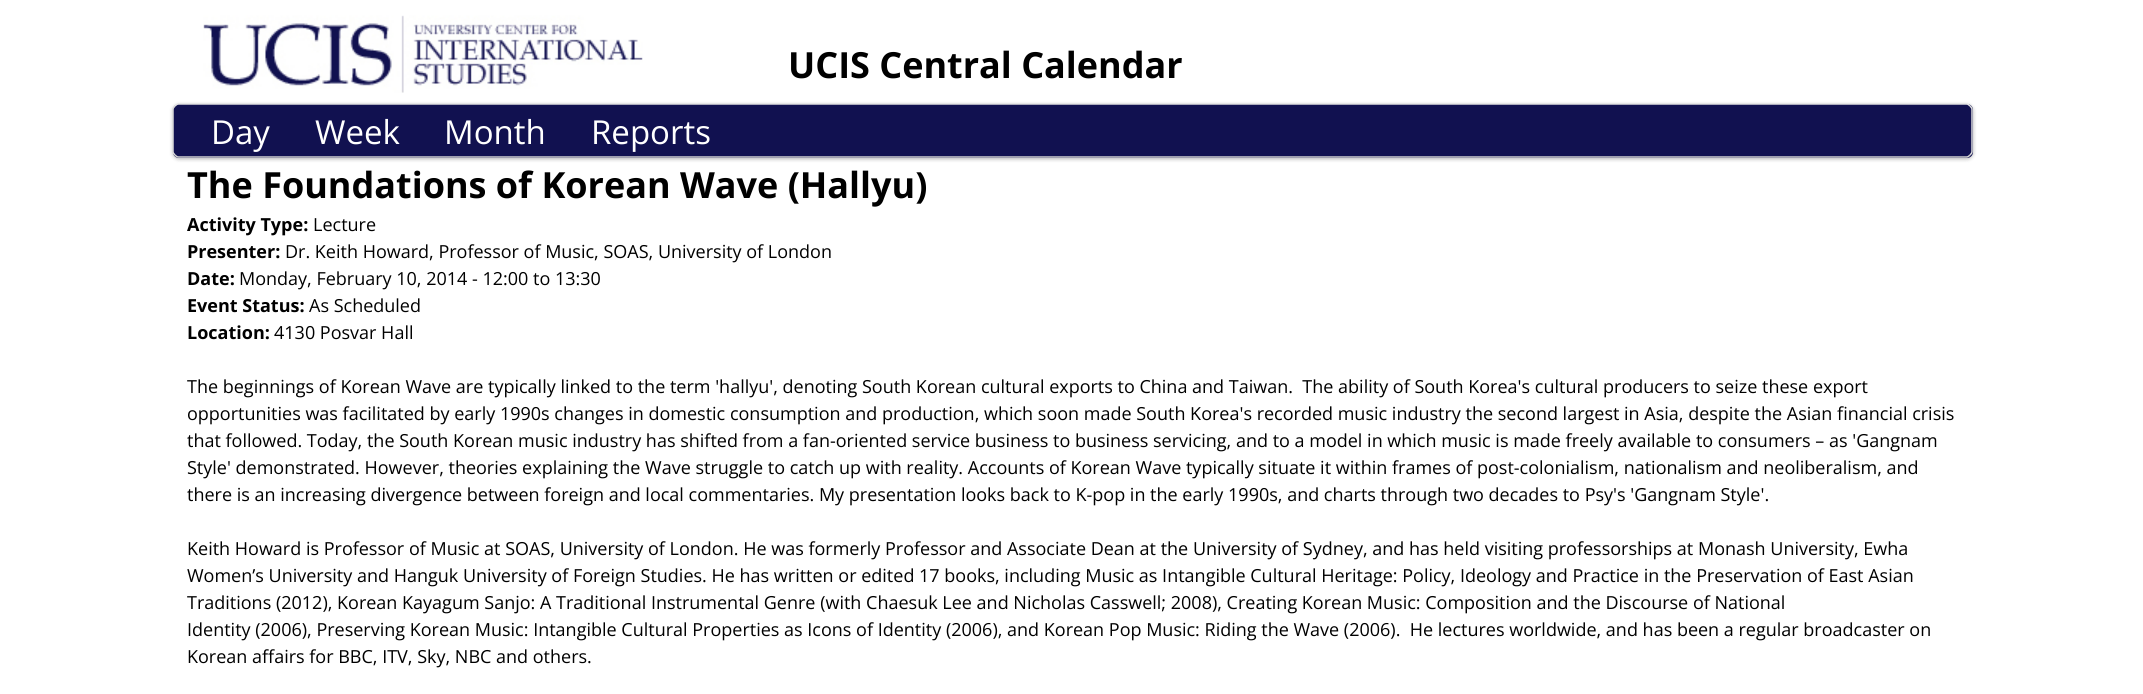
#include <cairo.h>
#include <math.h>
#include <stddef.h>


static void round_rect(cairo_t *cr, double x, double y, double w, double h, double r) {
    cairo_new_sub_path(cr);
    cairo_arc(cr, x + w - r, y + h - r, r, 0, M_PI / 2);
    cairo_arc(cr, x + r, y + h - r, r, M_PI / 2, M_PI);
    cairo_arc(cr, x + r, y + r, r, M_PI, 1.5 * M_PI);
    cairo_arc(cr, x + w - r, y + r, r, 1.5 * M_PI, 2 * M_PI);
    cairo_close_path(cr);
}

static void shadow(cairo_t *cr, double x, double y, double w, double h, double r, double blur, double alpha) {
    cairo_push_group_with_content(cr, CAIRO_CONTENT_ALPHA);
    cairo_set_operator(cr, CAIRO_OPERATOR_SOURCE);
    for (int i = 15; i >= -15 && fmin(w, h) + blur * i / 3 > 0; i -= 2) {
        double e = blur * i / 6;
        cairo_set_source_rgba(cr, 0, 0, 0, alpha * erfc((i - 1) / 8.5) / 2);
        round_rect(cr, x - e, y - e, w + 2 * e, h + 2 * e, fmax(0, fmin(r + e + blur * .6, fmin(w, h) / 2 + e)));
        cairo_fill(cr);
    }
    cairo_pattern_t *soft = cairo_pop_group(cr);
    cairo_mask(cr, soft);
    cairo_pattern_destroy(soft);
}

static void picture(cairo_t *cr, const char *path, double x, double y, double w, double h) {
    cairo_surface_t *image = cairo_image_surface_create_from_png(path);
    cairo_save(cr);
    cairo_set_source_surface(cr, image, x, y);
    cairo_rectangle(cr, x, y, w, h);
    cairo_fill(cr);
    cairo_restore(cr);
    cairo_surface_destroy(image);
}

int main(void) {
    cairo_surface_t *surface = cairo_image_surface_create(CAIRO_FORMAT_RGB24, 2143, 694);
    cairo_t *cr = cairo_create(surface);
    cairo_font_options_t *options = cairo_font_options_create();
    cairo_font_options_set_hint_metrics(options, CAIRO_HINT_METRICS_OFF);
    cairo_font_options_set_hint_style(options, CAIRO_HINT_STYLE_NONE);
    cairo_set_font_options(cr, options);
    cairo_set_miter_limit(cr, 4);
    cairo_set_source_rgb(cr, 1, 1, 1);
    cairo_paint(cr);
    picture(cr, "img1.png", 203, 15, 440, 78);
    cairo_select_font_face(cr, "Open Sans", CAIRO_FONT_SLANT_NORMAL, CAIRO_FONT_WEIGHT_BOLD);
    cairo_set_font_size(cr, 36);
    cairo_set_source_rgb(cr, 0, 0, 0);
    cairo_move_to(cr, 788, 78);
    cairo_show_text(cr, "UCIS Central Calendar");
    cairo_set_source_rgb(cr, 0, 0, 0);
    shadow(cr, 173, 105, 1800, 54, 6, 2, 0.3);
    cairo_set_source_rgb(cr, 0.067, 0.067, 0.314);
    round_rect(cr, 173, 104, 1800, 54, 6);
    cairo_fill(cr);
    cairo_new_path(cr);
    cairo_move_to(cr, 175, 106);
    cairo_curve_to(cr, 176, 105, 177, 104, 178.5, 104);
    cairo_line_to(cr, 1966.5, 104);
    cairo_curve_to(cr, 1968, 104, 1969, 105, 1970, 106);
    cairo_set_source_rgb(cr, 0.898, 0.898, 0.898);
    cairo_set_line_width(cr, 1.5);
    cairo_stroke(cr);
    cairo_new_path(cr);
    cairo_move_to(cr, 1970, 106);
    cairo_curve_to(cr, 1971, 107, 1972, 108, 1972, 109.5);
    cairo_line_to(cr, 1972, 151.5);
    cairo_curve_to(cr, 1972, 153, 1971, 154, 1970, 155);
    cairo_set_source_rgb(cr, 0.859, 0.859, 0.859);
    cairo_stroke(cr);
    cairo_new_path(cr);
    cairo_move_to(cr, 1970, 155);
    cairo_curve_to(cr, 1969, 156, 1968, 157, 1966.5, 157);
    cairo_line_to(cr, 178.5, 157);
    cairo_curve_to(cr, 177, 157, 176, 156, 175, 155);
    cairo_set_source_rgb(cr, 0.824, 0.824, 0.824);
    cairo_stroke(cr);
    cairo_new_path(cr);
    cairo_move_to(cr, 175, 155);
    cairo_curve_to(cr, 174, 154, 173, 153, 173, 151.5);
    cairo_line_to(cr, 173, 109.5);
    cairo_curve_to(cr, 173, 108, 174, 107, 175, 106);
    cairo_set_source_rgb(cr, 0.859, 0.859, 0.859);
    cairo_stroke(cr);
    cairo_select_font_face(cr, "Open Sans", CAIRO_FONT_SLANT_NORMAL, CAIRO_FONT_WEIGHT_NORMAL);
    cairo_set_font_size(cr, 33);
    cairo_set_source_rgb(cr, 1, 1, 1);
    cairo_move_to(cr, 211, 144);
    cairo_show_text(cr, "Day");
    cairo_move_to(cr, 315, 144);
    cairo_show_text(cr, "Week");
    cairo_move_to(cr, 444, 144);
    cairo_show_text(cr, "Month");
    cairo_move_to(cr, 591, 144);
    cairo_show_text(cr, "Reports");
    cairo_select_font_face(cr, "Open Sans", CAIRO_FONT_SLANT_NORMAL, CAIRO_FONT_WEIGHT_BOLD);
    cairo_set_font_size(cr, 36);
    cairo_set_source_rgb(cr, 0, 0, 0);
    cairo_move_to(cr, 187, 198);
    cairo_show_text(cr, "The Foundations of Korean Wave (Hallyu)");
    cairo_set_font_size(cr, 18);
    cairo_move_to(cr, 187, 231);
    cairo_show_text(cr, "Activity Type:");
    cairo_select_font_face(cr, "Open Sans", CAIRO_FONT_SLANT_NORMAL, CAIRO_FONT_WEIGHT_NORMAL);
    cairo_move_to(cr, 313, 231);
    cairo_show_text(cr, "Lecture");
    cairo_select_font_face(cr, "Open Sans", CAIRO_FONT_SLANT_NORMAL, CAIRO_FONT_WEIGHT_BOLD);
    cairo_move_to(cr, 187, 258);
    cairo_show_text(cr, "Presenter:");
    cairo_select_font_face(cr, "Open Sans", CAIRO_FONT_SLANT_NORMAL, CAIRO_FONT_WEIGHT_NORMAL);
    cairo_move_to(cr, 285, 258);
    cairo_show_text(cr, "Dr. Keith Howard, Professor of Music, SOAS, University of London");
    cairo_select_font_face(cr, "Open Sans", CAIRO_FONT_SLANT_NORMAL, CAIRO_FONT_WEIGHT_BOLD);
    cairo_move_to(cr, 187, 285);
    cairo_show_text(cr, "Date:");
    cairo_select_font_face(cr, "Open Sans", CAIRO_FONT_SLANT_NORMAL, CAIRO_FONT_WEIGHT_NORMAL);
    cairo_move_to(cr, 239, 285);
    cairo_show_text(cr, "Monday, February 10, 2014 - 12:00 to 13:30");
    cairo_select_font_face(cr, "Open Sans", CAIRO_FONT_SLANT_NORMAL, CAIRO_FONT_WEIGHT_BOLD);
    cairo_move_to(cr, 187, 312);
    cairo_show_text(cr, "Event Status:");
    cairo_select_font_face(cr, "Open Sans", CAIRO_FONT_SLANT_NORMAL, CAIRO_FONT_WEIGHT_NORMAL);
    cairo_move_to(cr, 309, 312);
    cairo_show_text(cr, "As Scheduled");
    cairo_select_font_face(cr, "Open Sans", CAIRO_FONT_SLANT_NORMAL, CAIRO_FONT_WEIGHT_BOLD);
    cairo_move_to(cr, 187, 339);
    cairo_show_text(cr, "Location:");
    cairo_select_font_face(cr, "Open Sans", CAIRO_FONT_SLANT_NORMAL, CAIRO_FONT_WEIGHT_NORMAL);
    cairo_move_to(cr, 274, 339);
    cairo_show_text(cr, "4130 Posvar Hall");
    cairo_move_to(cr, 187, 393);
    cairo_show_text(cr, "The beginnings of Korean Wave are typically linked to the term 'hallyu', denoting South Korean cultural exports to China and Taiwan.  The ability of South Korea's cultural producers to seize these export");
    cairo_move_to(cr, 187, 420);
    cairo_show_text(cr, "opportunities was facilitated by early 1990s changes in domestic consumption and production, which soon made South Korea's recorded music industry the second largest in Asia, despite the Asian financial crisis");
    cairo_move_to(cr, 187, 447);
    cairo_show_text(cr, "that followed. Today, the South Korean music industry has shifted from a fan-oriented service business to business servicing, and to a model in which music is made freely available to consumers – as 'Gangnam");
    cairo_move_to(cr, 187, 474);
    cairo_show_text(cr, "Style' demonstrated. However, theories explaining the Wave struggle to catch up with reality. Accounts of Korean Wave typically situate it within frames of post-colonialism, nationalism and neoliberalism, and");
    cairo_move_to(cr, 187, 501);
    cairo_show_text(cr, "there is an increasing divergence between foreign and local commentaries. My presentation looks back to K-pop in the early 1990s, and charts through two decades to Psy's 'Gangnam Style'.");
    cairo_move_to(cr, 187, 555);
    cairo_show_text(cr, "Keith Howard is Professor of Music at SOAS, University of London. He was formerly Professor and Associate Dean at the University of Sydney, and has held visiting professorships at Monash University, Ewha");
    cairo_move_to(cr, 187, 582);
    cairo_show_text(cr, "Women’s University and Hanguk University of Foreign Studies. He has written or edited 17 books, including Music as Intangible Cultural Heritage: Policy, Ideology and Practice in the Preservation of East Asian");
    cairo_move_to(cr, 187, 609);
    cairo_show_text(cr, "Traditions (2012), Korean Kayagum Sanjo: A Traditional Instrumental Genre (with Chaesuk Lee and Nicholas Casswell; 2008), Creating Korean Music: Composition and the Discourse of National");
    cairo_move_to(cr, 187, 636);
    cairo_show_text(cr, "Identity (2006), Preserving Korean Music: Intangible Cultural Properties as Icons of Identity (2006), and Korean Pop Music: Riding the Wave (2006).  He lectures worldwide, and has been a regular broadcaster on");
    cairo_move_to(cr, 187, 663);
    cairo_show_text(cr, "Korean affairs for BBC, ITV, Sky, NBC and others.");
    cairo_surface_write_to_png(surface, "page.png");
    cairo_font_options_destroy(options);
    cairo_destroy(cr);
    cairo_surface_destroy(surface);
    return 0;
}
